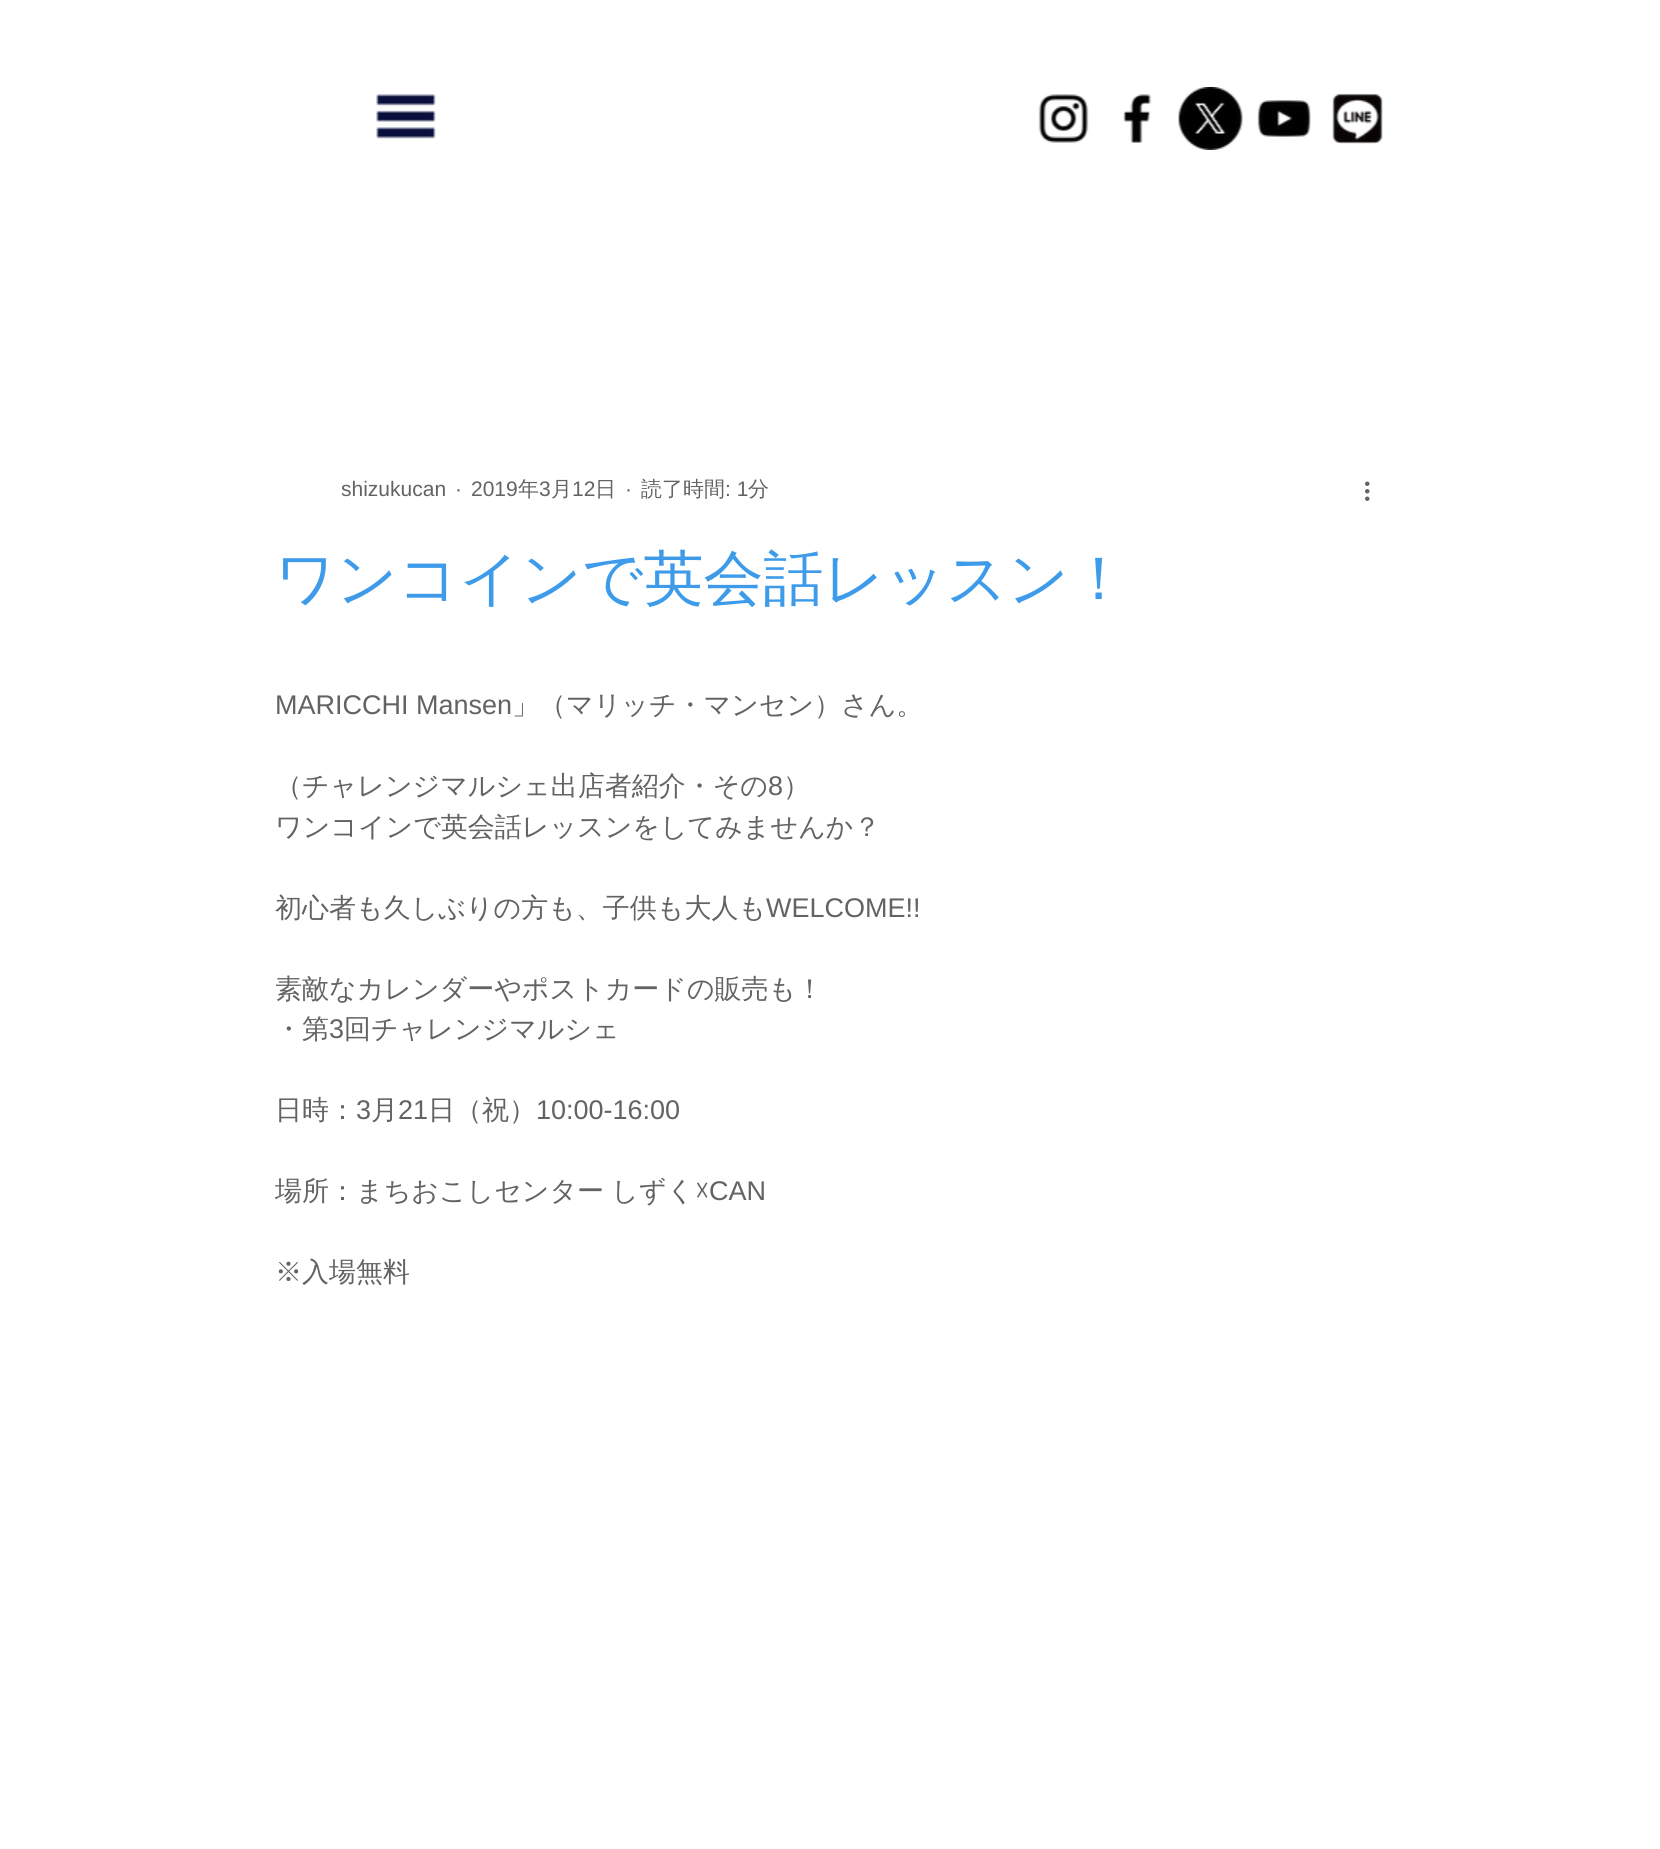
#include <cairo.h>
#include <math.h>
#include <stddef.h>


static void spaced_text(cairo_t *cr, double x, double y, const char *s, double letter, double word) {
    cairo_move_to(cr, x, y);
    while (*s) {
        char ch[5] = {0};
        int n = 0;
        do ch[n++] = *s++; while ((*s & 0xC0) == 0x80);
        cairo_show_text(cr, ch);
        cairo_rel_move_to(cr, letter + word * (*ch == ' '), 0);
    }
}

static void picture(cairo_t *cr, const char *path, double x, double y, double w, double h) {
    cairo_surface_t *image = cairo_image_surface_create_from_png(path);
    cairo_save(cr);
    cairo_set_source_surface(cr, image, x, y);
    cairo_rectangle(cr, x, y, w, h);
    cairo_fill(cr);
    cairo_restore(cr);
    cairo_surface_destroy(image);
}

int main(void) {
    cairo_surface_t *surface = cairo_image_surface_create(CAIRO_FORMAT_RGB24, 1660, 1849);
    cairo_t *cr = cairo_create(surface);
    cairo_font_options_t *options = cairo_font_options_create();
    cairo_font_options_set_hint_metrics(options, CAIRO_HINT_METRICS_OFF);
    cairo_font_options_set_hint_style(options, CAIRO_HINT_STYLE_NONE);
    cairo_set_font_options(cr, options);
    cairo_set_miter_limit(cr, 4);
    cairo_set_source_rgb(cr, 1, 1, 1);
    cairo_paint(cr);
    picture(cr, "img1.png", 376, 94, 60, 45);
    picture(cr, "img2.png", 1038, 94, 51, 49);
    picture(cr, "img3.png", 1123, 94, 29, 49);
    picture(cr, "img4.png", 1178, 87, 65, 63);
    picture(cr, "img5.png", 1257, 100, 54, 37);
    picture(cr, "img6.png", 1332, 93, 51, 51);
    cairo_select_font_face(cr, "Liberation Sans", CAIRO_FONT_SLANT_NORMAL, CAIRO_FONT_WEIGHT_NORMAL);
    cairo_set_font_size(cr, 21);
    cairo_set_source_rgb(cr, 0.388, 0.388, 0.388);
    cairo_move_to(cr, 341, 496);
    cairo_show_text(cr, "shizukucan");
    cairo_move_to(cr, 455, 496);
    cairo_show_text(cr, "·");
    cairo_move_to(cr, 471, 496);
    cairo_show_text(cr, "2019");
    cairo_select_font_face(cr, "WenQuanYi Zen Hei Medium", CAIRO_FONT_SLANT_NORMAL, CAIRO_FONT_WEIGHT_NORMAL);
    cairo_move_to(cr, 518, 496);
    cairo_show_text(cr, "年");
    cairo_select_font_face(cr, "Liberation Sans", CAIRO_FONT_SLANT_NORMAL, CAIRO_FONT_WEIGHT_NORMAL);
    cairo_move_to(cr, 539, 496);
    cairo_show_text(cr, "3");
    cairo_select_font_face(cr, "WenQuanYi Zen Hei Medium", CAIRO_FONT_SLANT_NORMAL, CAIRO_FONT_WEIGHT_NORMAL);
    cairo_move_to(cr, 551, 496);
    cairo_show_text(cr, "月");
    cairo_select_font_face(cr, "Liberation Sans", CAIRO_FONT_SLANT_NORMAL, CAIRO_FONT_WEIGHT_NORMAL);
    cairo_move_to(cr, 572, 496);
    cairo_show_text(cr, "12");
    cairo_select_font_face(cr, "WenQuanYi Zen Hei Medium", CAIRO_FONT_SLANT_NORMAL, CAIRO_FONT_WEIGHT_NORMAL);
    cairo_move_to(cr, 595, 496);
    cairo_show_text(cr, "日");
    cairo_select_font_face(cr, "Liberation Sans", CAIRO_FONT_SLANT_NORMAL, CAIRO_FONT_WEIGHT_NORMAL);
    cairo_move_to(cr, 625, 496);
    cairo_show_text(cr, "·");
    cairo_select_font_face(cr, "WenQuanYi Zen Hei Medium", CAIRO_FONT_SLANT_NORMAL, CAIRO_FONT_WEIGHT_NORMAL);
    cairo_move_to(cr, 641, 496);
    cairo_show_text(cr, "読了時間");
    cairo_select_font_face(cr, "Liberation Sans", CAIRO_FONT_SLANT_NORMAL, CAIRO_FONT_WEIGHT_NORMAL);
    cairo_move_to(cr, 725, 496);
    cairo_show_text(cr, ": 1");
    cairo_select_font_face(cr, "WenQuanYi Zen Hei Medium", CAIRO_FONT_SLANT_NORMAL, CAIRO_FONT_WEIGHT_NORMAL);
    cairo_move_to(cr, 748, 496);
    cairo_show_text(cr, "分");
    picture(cr, "img7.png", 1365, 481, 5, 20);
    cairo_set_font_size(cr, 60);
    cairo_set_source_rgb(cr, 0.239, 0.608, 0.914);
    cairo_move_to(cr, 275, 599);
    cairo_show_text(cr, "ワンコインで英会話レッスン！");
    cairo_select_font_face(cr, "Liberation Sans", CAIRO_FONT_SLANT_NORMAL, CAIRO_FONT_WEIGHT_NORMAL);
    cairo_set_font_size(cr, 27);
    cairo_set_source_rgb(cr, 0.388, 0.388, 0.388);
    cairo_move_to(cr, 275, 714);
    cairo_show_text(cr, "MARICCHI Mansen");
    cairo_select_font_face(cr, "WenQuanYi Zen Hei Medium", CAIRO_FONT_SLANT_NORMAL, CAIRO_FONT_WEIGHT_NORMAL);
    cairo_move_to(cr, 512, 714);
    cairo_show_text(cr, "」（マリッチ・マンセン）さん。");
    cairo_move_to(cr, 275, 795);
    cairo_show_text(cr, "（チャレンジマルシェ出店者紹介・その");
    cairo_select_font_face(cr, "Liberation Sans", CAIRO_FONT_SLANT_NORMAL, CAIRO_FONT_WEIGHT_NORMAL);
    cairo_move_to(cr, 768, 795);
    cairo_show_text(cr, "8");
    cairo_select_font_face(cr, "WenQuanYi Zen Hei Medium", CAIRO_FONT_SLANT_NORMAL, CAIRO_FONT_WEIGHT_NORMAL);
    cairo_move_to(cr, 783, 795);
    cairo_show_text(cr, "）");
    cairo_move_to(cr, 275, 836);
    cairo_show_text(cr, "ワンコインで英会話レッスンをしてみませんか？");
    cairo_move_to(cr, 275, 917);
    cairo_show_text(cr, "初心者も久しぶりの方も、子供も大人も");
    cairo_select_font_face(cr, "Liberation Sans", CAIRO_FONT_SLANT_NORMAL, CAIRO_FONT_WEIGHT_NORMAL);
    cairo_move_to(cr, 766, 917);
    cairo_show_text(cr, "WELCOME!!");
    cairo_select_font_face(cr, "WenQuanYi Zen Hei Medium", CAIRO_FONT_SLANT_NORMAL, CAIRO_FONT_WEIGHT_NORMAL);
    cairo_move_to(cr, 275, 998);
    cairo_show_text(cr, "素敵なカレンダーやポストカードの販売も！");
    cairo_move_to(cr, 275, 1038);
    cairo_show_text(cr, "・第");
    cairo_select_font_face(cr, "Liberation Sans", CAIRO_FONT_SLANT_NORMAL, CAIRO_FONT_WEIGHT_NORMAL);
    cairo_move_to(cr, 329, 1038);
    cairo_show_text(cr, "3");
    cairo_select_font_face(cr, "WenQuanYi Zen Hei Medium", CAIRO_FONT_SLANT_NORMAL, CAIRO_FONT_WEIGHT_NORMAL);
    cairo_move_to(cr, 344, 1038);
    cairo_show_text(cr, "回チャレンジマルシェ");
    cairo_move_to(cr, 275, 1119);
    cairo_show_text(cr, "日時：");
    cairo_select_font_face(cr, "Liberation Sans", CAIRO_FONT_SLANT_NORMAL, CAIRO_FONT_WEIGHT_NORMAL);
    cairo_move_to(cr, 356, 1119);
    cairo_show_text(cr, "3");
    cairo_select_font_face(cr, "WenQuanYi Zen Hei Medium", CAIRO_FONT_SLANT_NORMAL, CAIRO_FONT_WEIGHT_NORMAL);
    cairo_move_to(cr, 371, 1119);
    cairo_show_text(cr, "月");
    cairo_select_font_face(cr, "Liberation Sans", CAIRO_FONT_SLANT_NORMAL, CAIRO_FONT_WEIGHT_NORMAL);
    cairo_move_to(cr, 398, 1119);
    cairo_show_text(cr, "21");
    cairo_select_font_face(cr, "WenQuanYi Zen Hei Medium", CAIRO_FONT_SLANT_NORMAL, CAIRO_FONT_WEIGHT_NORMAL);
    cairo_move_to(cr, 428, 1119);
    cairo_show_text(cr, "日（祝）");
    cairo_select_font_face(cr, "Liberation Sans", CAIRO_FONT_SLANT_NORMAL, CAIRO_FONT_WEIGHT_NORMAL);
    cairo_move_to(cr, 536, 1119);
    cairo_show_text(cr, "10:00-16:00");
    cairo_select_font_face(cr, "WenQuanYi Zen Hei Medium", CAIRO_FONT_SLANT_NORMAL, CAIRO_FONT_WEIGHT_NORMAL);
    spaced_text(cr, 275, 1200, "場所：まちおこしセンター しずく", 0, -1);
    cairo_select_font_face(cr, "DejaVu Sans", CAIRO_FONT_SLANT_NORMAL, CAIRO_FONT_WEIGHT_NORMAL);
    cairo_move_to(cr, 695, 1200);
    cairo_show_text(cr, "☓");
    cairo_select_font_face(cr, "Liberation Sans", CAIRO_FONT_SLANT_NORMAL, CAIRO_FONT_WEIGHT_NORMAL);
    cairo_move_to(cr, 709, 1200);
    cairo_show_text(cr, "CAN");
    cairo_select_font_face(cr, "WenQuanYi Zen Hei Medium", CAIRO_FONT_SLANT_NORMAL, CAIRO_FONT_WEIGHT_NORMAL);
    cairo_move_to(cr, 275, 1281);
    cairo_show_text(cr, "※入場無料");
    cairo_surface_write_to_png(surface, "page.png");
    cairo_font_options_destroy(options);
    cairo_destroy(cr);
    cairo_surface_destroy(surface);
    return 0;
}
